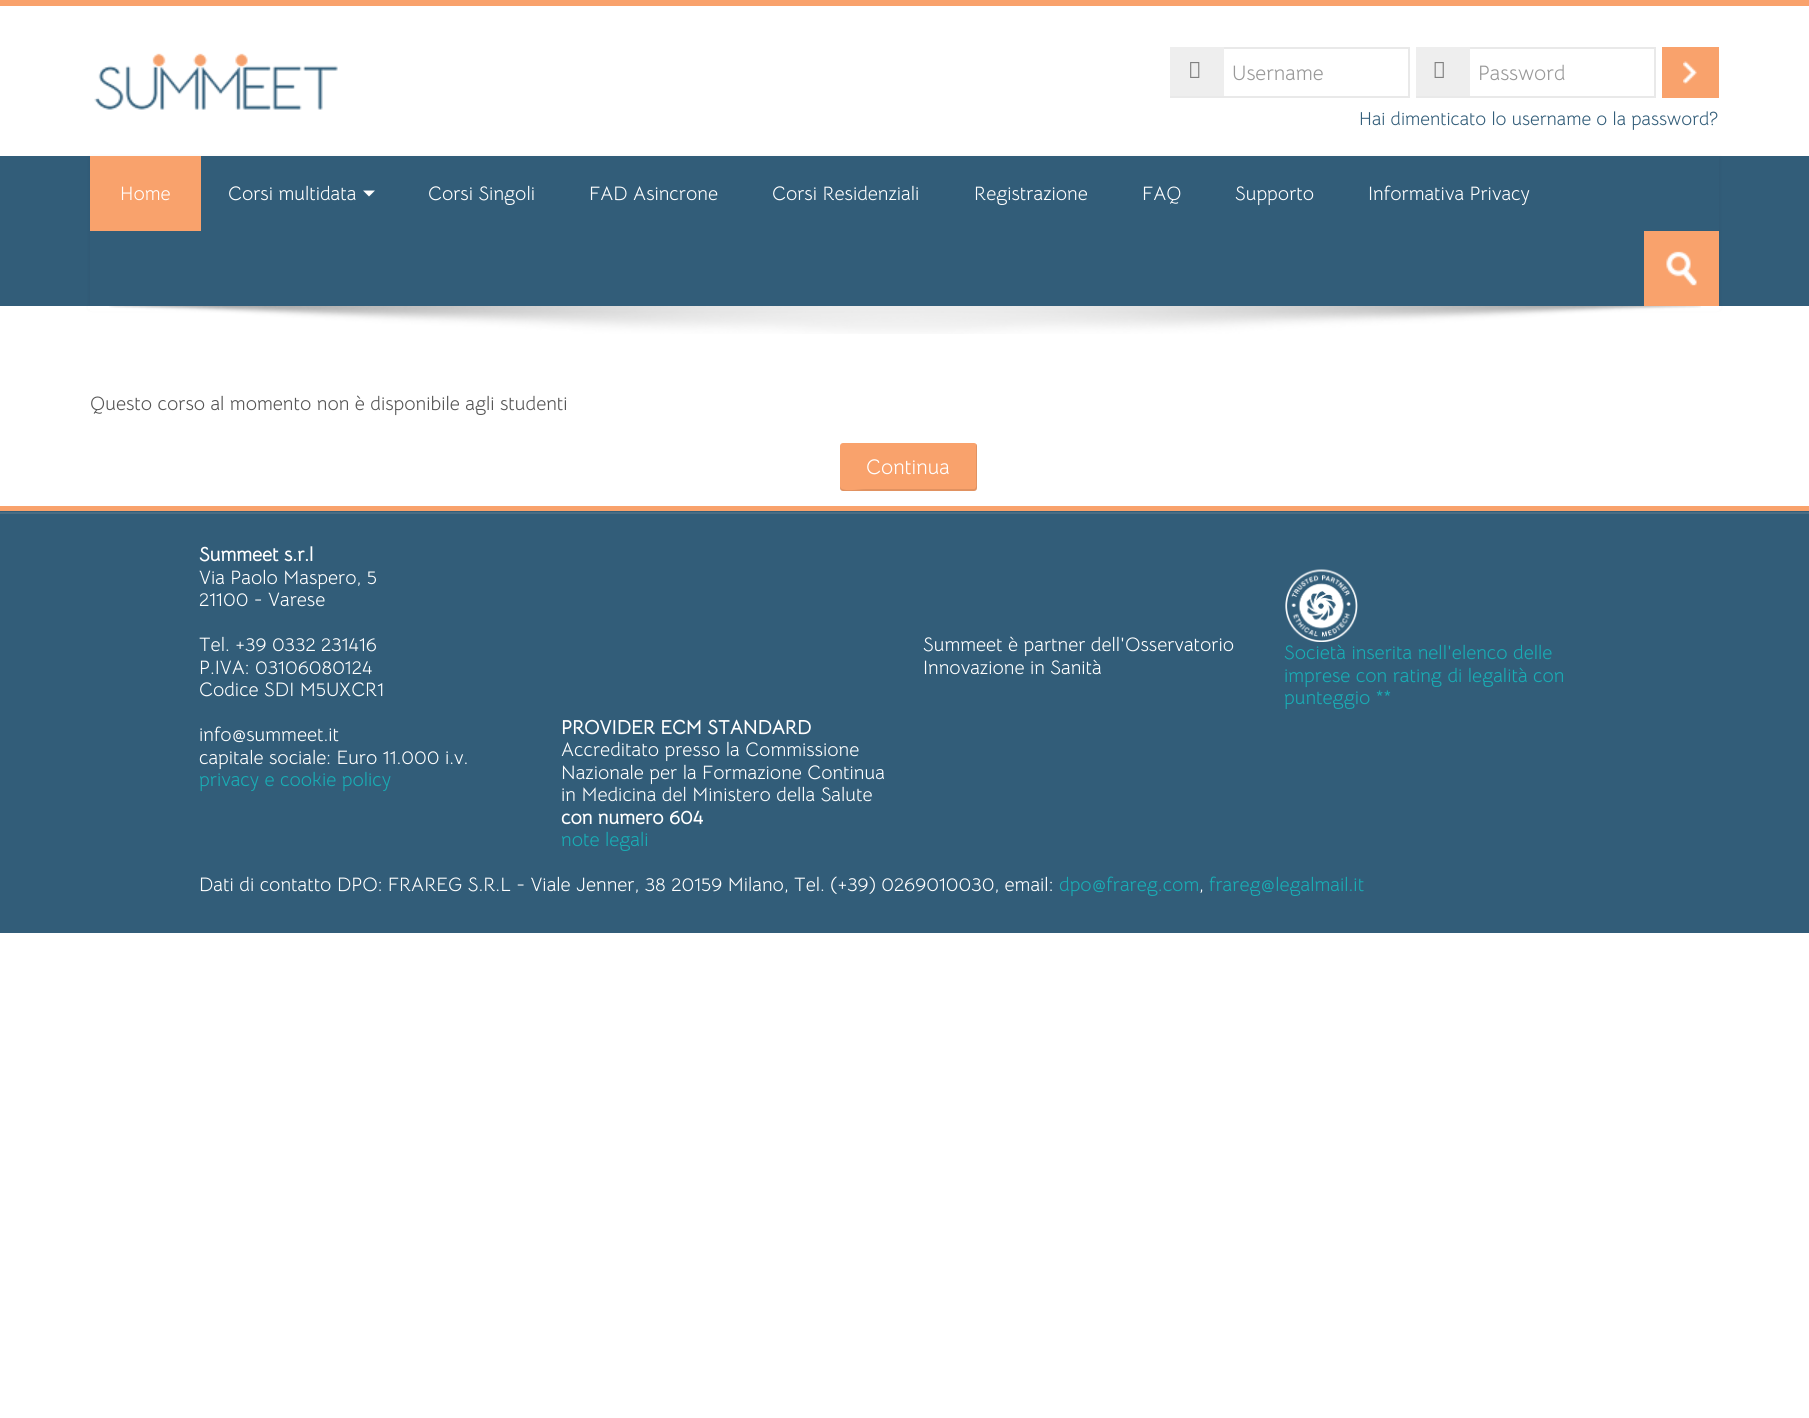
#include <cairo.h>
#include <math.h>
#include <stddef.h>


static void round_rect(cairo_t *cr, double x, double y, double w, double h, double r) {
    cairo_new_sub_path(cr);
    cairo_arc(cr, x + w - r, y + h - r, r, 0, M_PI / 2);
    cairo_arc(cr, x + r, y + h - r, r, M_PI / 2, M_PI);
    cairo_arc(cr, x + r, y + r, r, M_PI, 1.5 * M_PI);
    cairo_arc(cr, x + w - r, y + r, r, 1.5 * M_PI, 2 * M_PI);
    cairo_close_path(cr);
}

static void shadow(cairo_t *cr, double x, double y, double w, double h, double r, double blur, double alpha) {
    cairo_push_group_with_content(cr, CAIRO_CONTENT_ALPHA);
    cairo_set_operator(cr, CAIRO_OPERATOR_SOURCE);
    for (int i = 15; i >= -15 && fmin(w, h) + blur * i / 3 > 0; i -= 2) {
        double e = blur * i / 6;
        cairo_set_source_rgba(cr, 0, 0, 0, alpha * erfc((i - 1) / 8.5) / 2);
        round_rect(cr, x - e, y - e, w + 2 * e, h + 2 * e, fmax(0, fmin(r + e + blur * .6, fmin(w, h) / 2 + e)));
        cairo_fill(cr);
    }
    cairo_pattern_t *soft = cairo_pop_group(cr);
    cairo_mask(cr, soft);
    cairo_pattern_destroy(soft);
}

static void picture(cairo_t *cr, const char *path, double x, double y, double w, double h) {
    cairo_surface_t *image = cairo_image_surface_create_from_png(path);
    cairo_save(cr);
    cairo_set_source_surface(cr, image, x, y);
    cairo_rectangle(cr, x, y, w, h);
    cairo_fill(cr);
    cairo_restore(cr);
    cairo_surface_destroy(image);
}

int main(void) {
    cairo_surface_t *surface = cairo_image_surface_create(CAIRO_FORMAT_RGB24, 1809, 1418);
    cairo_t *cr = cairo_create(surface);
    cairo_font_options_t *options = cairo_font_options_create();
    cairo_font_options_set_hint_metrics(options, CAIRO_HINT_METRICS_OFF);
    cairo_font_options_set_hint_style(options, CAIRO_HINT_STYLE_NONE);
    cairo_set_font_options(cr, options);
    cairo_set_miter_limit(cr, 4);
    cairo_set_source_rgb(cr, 1, 1, 1);
    cairo_paint(cr);
    cairo_set_source_rgb(cr, 0.976, 0.635, 0.424);
    cairo_rectangle(cr, 0, 0, 1809, 6);
    cairo_fill(cr);
    picture(cr, "img1.png", 94, 53, 244, 57);
    cairo_rectangle(cr, 1171, 48, 238, 49);
    cairo_set_source_rgb(cr, 0.914, 0.914, 0.914);
    cairo_stroke(cr);
    cairo_set_source_rgb(cr, 0.933, 0.933, 0.933);
    cairo_rectangle(cr, 1170, 47, 54, 49);
    cairo_fill(cr);
    picture(cr, "img2.png", 1190, 62, 10, 16);
    cairo_select_font_face(cr, "Bellota Text", CAIRO_FONT_SLANT_NORMAL, CAIRO_FONT_WEIGHT_NORMAL);
    cairo_set_font_size(cr, 21);
    cairo_set_source_rgb(cr, 0.6, 0.6, 0.6);
    cairo_move_to(cr, 1232, 80);
    cairo_show_text(cr, "Username");
    cairo_rectangle(cr, 1417, 48, 238, 49);
    cairo_set_source_rgb(cr, 0.914, 0.914, 0.914);
    cairo_stroke(cr);
    cairo_set_source_rgb(cr, 0.933, 0.933, 0.933);
    cairo_rectangle(cr, 1416, 47, 54, 49);
    cairo_fill(cr);
    picture(cr, "img3.png", 1434, 62, 10, 16);
    cairo_set_source_rgb(cr, 0.6, 0.6, 0.6);
    cairo_move_to(cr, 1478, 80);
    cairo_show_text(cr, "Password");
    cairo_set_source_rgb(cr, 0.976, 0.635, 0.424);
    cairo_rectangle(cr, 1662, 47, 57, 51);
    cairo_fill(cr);
    picture(cr, "img4.png", 1683, 61, 14, 23);
    cairo_set_font_size(cr, 18.8);
    cairo_set_source_rgb(cr, 0.196, 0.365, 0.475);
    cairo_move_to(cr, 1359, 125);
    cairo_show_text(cr, "Hai dimenticato lo username o la password?");
    cairo_rectangle(cr, 0, 156, 1809, 150);
    cairo_fill(cr);
    cairo_save(cr);
    cairo_set_fill_rule(cr, CAIRO_FILL_RULE_EVEN_ODD);
    cairo_new_path(cr);
    cairo_move_to(cr, 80, 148);
    cairo_line_to(cr, 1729, 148);
    cairo_line_to(cr, 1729, 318);
    cairo_line_to(cr, 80, 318);
    cairo_close_path(cr);
    cairo_move_to(cr, 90, 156);
    cairo_line_to(cr, 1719, 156);
    cairo_line_to(cr, 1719, 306);
    cairo_line_to(cr, 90, 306);
    cairo_close_path(cr);
    cairo_clip(cr);
    cairo_set_source_rgb(cr, 0, 0, 0);
    shadow(cr, 90, 158, 1629, 150, 0, 3, 0.07);
    cairo_restore(cr);
    cairo_set_source_rgb(cr, 0.976, 0.635, 0.424);
    cairo_rectangle(cr, 90, 156, 111, 75);
    cairo_fill(cr);
    cairo_set_font_size(cr, 19.5);
    cairo_set_source_rgb(cr, 1, 1, 1);
    cairo_move_to(cr, 120, 200);
    cairo_show_text(cr, "Home");
    cairo_move_to(cr, 228, 200);
    cairo_show_text(cr, "Corsi multidata");
    cairo_new_path(cr);
    cairo_move_to(cr, 363, 190.5);
    cairo_line_to(cr, 375, 190.5);
    cairo_line_to(cr, 369, 196.5);
    cairo_close_path(cr);
    cairo_fill(cr);
    cairo_move_to(cr, 428, 200);
    cairo_show_text(cr, "Corsi Singoli");
    cairo_move_to(cr, 589, 200);
    cairo_show_text(cr, "FAD Asincrone");
    cairo_move_to(cr, 772, 200);
    cairo_show_text(cr, "Corsi Residenziali");
    cairo_move_to(cr, 974, 200);
    cairo_show_text(cr, "Registrazione");
    cairo_move_to(cr, 1142, 200);
    cairo_show_text(cr, "FAQ");
    cairo_move_to(cr, 1235, 200);
    cairo_show_text(cr, "Supporto");
    cairo_move_to(cr, 1368, 200);
    cairo_show_text(cr, "Informativa Privacy");
    cairo_set_source_rgb(cr, 0.976, 0.635, 0.424);
    cairo_rectangle(cr, 1644, 231, 75, 75);
    cairo_fill(cr);
    picture(cr, "img5.png", 1666, 251, 31, 35);
    cairo_set_source_rgb(cr, 1, 1, 1);
    cairo_rectangle(cr, 88, 306, 1633, 3);
    cairo_fill(cr);
    cairo_rectangle(cr, 90, 309, 1629, 2);
    cairo_fill(cr);
    picture(cr, "img6.png", 109, 306, 1592, 28);
    cairo_set_source_rgb(cr, 0.333, 0.333, 0.333);
    cairo_move_to(cr, 90, 410);
    cairo_show_text(cr, "Questo corso al momento non è disponibile agli studenti");
    cairo_set_source_rgb(cr, 0.976, 0.635, 0.424);
    round_rect(cr, 840, 443, 137, 48, 3);
    cairo_fill(cr);
    cairo_set_source_rgba(cr, 0, 0, 0, 0.1);
    cairo_new_path(cr);
    cairo_move_to(cr, 840, 486);
    cairo_line_to(cr, 840, 488);
    cairo_curve_to(cr, 840, 490, 841, 491, 843, 491);
    cairo_line_to(cr, 974, 491);
    cairo_curve_to(cr, 976, 491, 977, 490, 977, 488);
    cairo_line_to(cr, 977, 446);
    cairo_curve_to(cr, 977, 445, 977, 444, 976, 444);
    cairo_line_to(cr, 976, 479);
    cairo_curve_to(cr, 976, 483, 977, 489, 974, 489);
    cairo_line_to(cr, 865, 489);
    cairo_curve_to(cr, 860, 489, 840, 493, 840, 486);
    cairo_close_path(cr);
    cairo_fill(cr);
    cairo_set_font_size(cr, 21);
    cairo_set_source_rgb(cr, 1, 1, 1);
    cairo_move_to(cr, 866, 474);
    cairo_show_text(cr, "Continua");
    cairo_set_source_rgb(cr, 0.196, 0.365, 0.475);
    cairo_rectangle(cr, 0, 511, 1809, 1);
    cairo_fill(cr);
    cairo_set_source_rgb(cr, 0.976, 0.635, 0.424);
    cairo_rectangle(cr, 0, 506, 1809, 5);
    cairo_fill(cr);
    cairo_set_source_rgb(cr, 0.196, 0.365, 0.475);
    cairo_rectangle(cr, 0, 514, 1809, 419);
    cairo_fill(cr);
    cairo_set_source_rgb(cr, 0.286, 0.427, 0.522);
    cairo_rectangle(cr, 0, 512, 1809, 2);
    cairo_fill(cr);
    cairo_select_font_face(cr, "Bellota Text", CAIRO_FONT_SLANT_NORMAL, CAIRO_FONT_WEIGHT_BOLD);
    cairo_set_font_size(cr, 19.5);
    cairo_set_source_rgb(cr, 1, 1, 1);
    cairo_move_to(cr, 199, 561);
    cairo_show_text(cr, "Summeet s.r.l");
    cairo_select_font_face(cr, "Bellota Text", CAIRO_FONT_SLANT_NORMAL, CAIRO_FONT_WEIGHT_NORMAL);
    cairo_move_to(cr, 199, 584);
    cairo_show_text(cr, "Via Paolo Maspero, 5");
    cairo_move_to(cr, 199, 606);
    cairo_show_text(cr, "21100 - Varese");
    cairo_move_to(cr, 199, 651);
    cairo_show_text(cr, "Tel. +39 0332 231416");
    cairo_move_to(cr, 199, 674);
    cairo_show_text(cr, "P.IVA: 03106080124");
    cairo_move_to(cr, 199, 696);
    cairo_show_text(cr, "Codice SDI M5UXCR1");
    cairo_move_to(cr, 199, 741);
    cairo_show_text(cr, "info@summeet.it");
    cairo_move_to(cr, 199, 764);
    cairo_show_text(cr, "capitale sociale: Euro 11.000 i.v.");
    cairo_set_source_rgb(cr, 0.094, 0.678, 0.71);
    cairo_move_to(cr, 199, 786);
    cairo_show_text(cr, "privacy e cookie policy");
    cairo_set_source_rgb(cr, 1, 1, 1);
    cairo_move_to(cr, 923, 651);
    cairo_show_text(cr, "Summeet è partner dell'Osservatorio");
    cairo_move_to(cr, 923, 674);
    cairo_show_text(cr, "Innovazione in Sanità");
    picture(cr, "img7.png", 1285, 569, 73, 73);
    cairo_set_source_rgb(cr, 0.094, 0.678, 0.71);
    cairo_move_to(cr, 1284, 659);
    cairo_show_text(cr, "Società inserita nell'elenco delle");
    cairo_move_to(cr, 1284, 682);
    cairo_show_text(cr, "imprese con rating di legalità con");
    cairo_move_to(cr, 1284, 704);
    cairo_show_text(cr, "punteggio **");
    cairo_select_font_face(cr, "Bellota Text", CAIRO_FONT_SLANT_NORMAL, CAIRO_FONT_WEIGHT_BOLD);
    cairo_set_source_rgb(cr, 1, 1, 1);
    cairo_move_to(cr, 561, 734);
    cairo_show_text(cr, "PROVIDER ECM STANDARD");
    cairo_select_font_face(cr, "Bellota Text", CAIRO_FONT_SLANT_NORMAL, CAIRO_FONT_WEIGHT_NORMAL);
    cairo_move_to(cr, 561, 756);
    cairo_show_text(cr, "Accreditato presso la Commissione");
    cairo_move_to(cr, 561, 779);
    cairo_show_text(cr, "Nazionale per la Formazione Continua");
    cairo_move_to(cr, 561, 801);
    cairo_show_text(cr, "in Medicina del Ministero della Salute");
    cairo_select_font_face(cr, "Bellota Text", CAIRO_FONT_SLANT_NORMAL, CAIRO_FONT_WEIGHT_BOLD);
    cairo_move_to(cr, 561, 824);
    cairo_show_text(cr, "con numero 604");
    cairo_select_font_face(cr, "Bellota Text", CAIRO_FONT_SLANT_NORMAL, CAIRO_FONT_WEIGHT_NORMAL);
    cairo_set_source_rgb(cr, 0.094, 0.678, 0.71);
    cairo_move_to(cr, 561, 846);
    cairo_show_text(cr, "note legali");
    cairo_set_source_rgb(cr, 1, 1, 1);
    cairo_move_to(cr, 199, 891);
    cairo_show_text(cr, "Dati di contatto DPO: FRAREG S.R.L - Viale Jenner, 38 20159 Milano, Tel. (+39) 0269010030, email:");
    cairo_set_source_rgb(cr, 0.094, 0.678, 0.71);
    cairo_move_to(cr, 1059, 891);
    cairo_show_text(cr, "dpo@frareg.com");
    cairo_set_source_rgb(cr, 1, 1, 1);
    cairo_move_to(cr, 1199, 891);
    cairo_show_text(cr, ",");
    cairo_set_source_rgb(cr, 0.094, 0.678, 0.71);
    cairo_move_to(cr, 1209, 891);
    cairo_show_text(cr, "frareg@legalmail.it");
    cairo_surface_write_to_png(surface, "page.png");
    cairo_font_options_destroy(options);
    cairo_destroy(cr);
    cairo_surface_destroy(surface);
    return 0;
}
